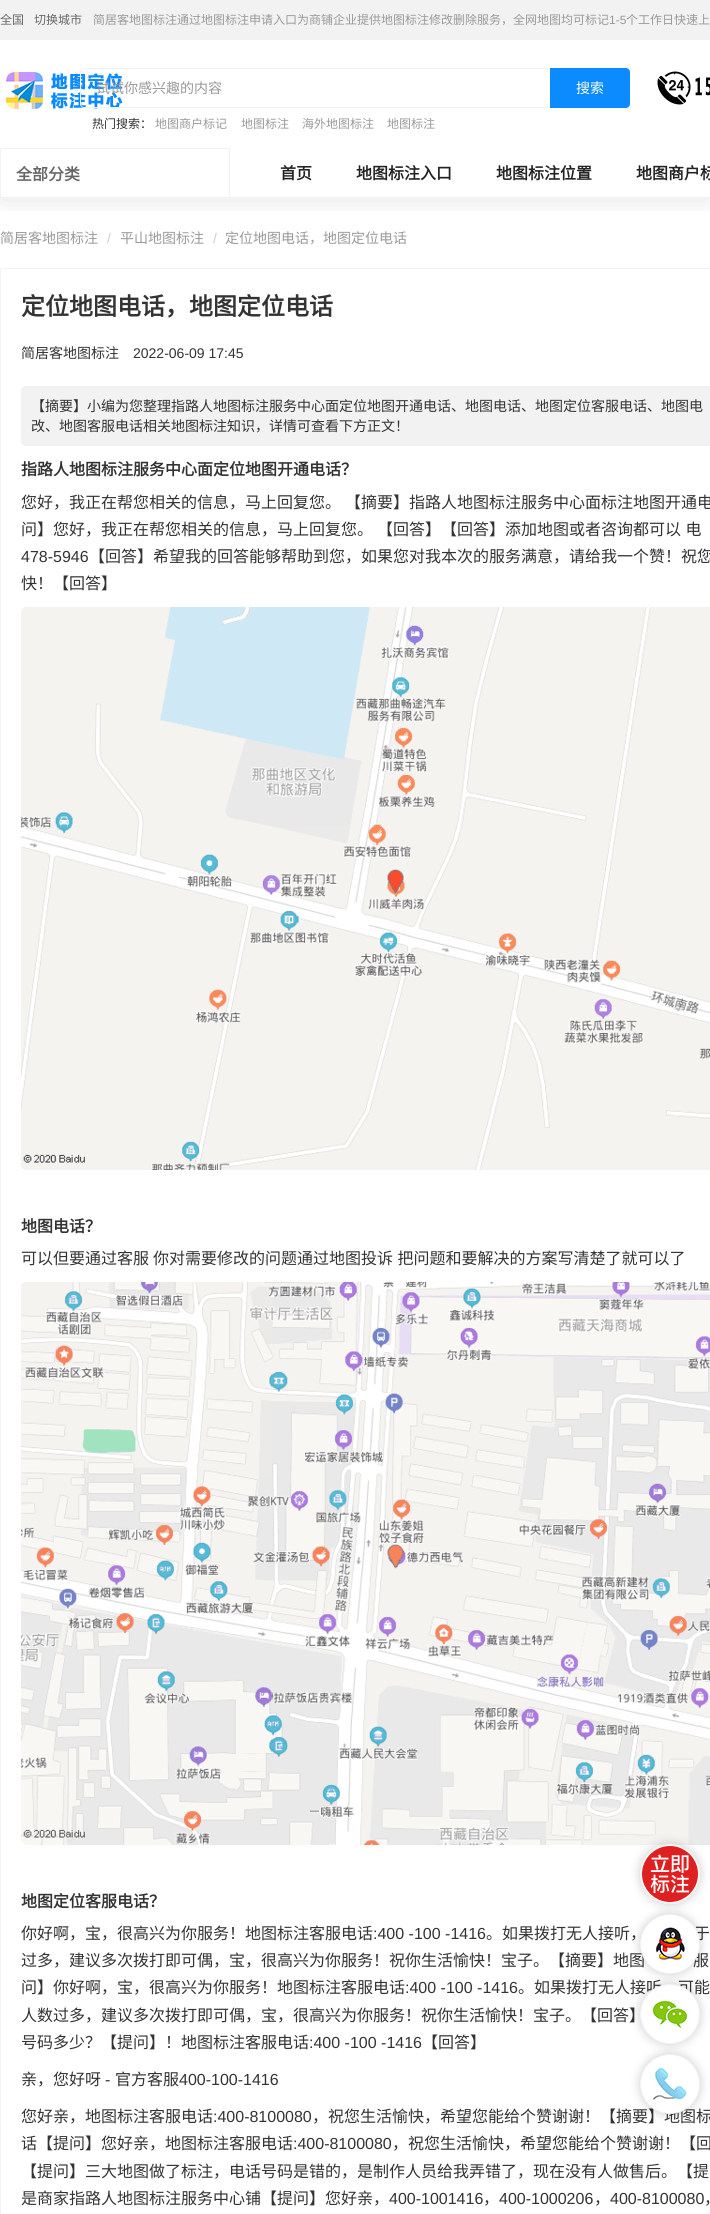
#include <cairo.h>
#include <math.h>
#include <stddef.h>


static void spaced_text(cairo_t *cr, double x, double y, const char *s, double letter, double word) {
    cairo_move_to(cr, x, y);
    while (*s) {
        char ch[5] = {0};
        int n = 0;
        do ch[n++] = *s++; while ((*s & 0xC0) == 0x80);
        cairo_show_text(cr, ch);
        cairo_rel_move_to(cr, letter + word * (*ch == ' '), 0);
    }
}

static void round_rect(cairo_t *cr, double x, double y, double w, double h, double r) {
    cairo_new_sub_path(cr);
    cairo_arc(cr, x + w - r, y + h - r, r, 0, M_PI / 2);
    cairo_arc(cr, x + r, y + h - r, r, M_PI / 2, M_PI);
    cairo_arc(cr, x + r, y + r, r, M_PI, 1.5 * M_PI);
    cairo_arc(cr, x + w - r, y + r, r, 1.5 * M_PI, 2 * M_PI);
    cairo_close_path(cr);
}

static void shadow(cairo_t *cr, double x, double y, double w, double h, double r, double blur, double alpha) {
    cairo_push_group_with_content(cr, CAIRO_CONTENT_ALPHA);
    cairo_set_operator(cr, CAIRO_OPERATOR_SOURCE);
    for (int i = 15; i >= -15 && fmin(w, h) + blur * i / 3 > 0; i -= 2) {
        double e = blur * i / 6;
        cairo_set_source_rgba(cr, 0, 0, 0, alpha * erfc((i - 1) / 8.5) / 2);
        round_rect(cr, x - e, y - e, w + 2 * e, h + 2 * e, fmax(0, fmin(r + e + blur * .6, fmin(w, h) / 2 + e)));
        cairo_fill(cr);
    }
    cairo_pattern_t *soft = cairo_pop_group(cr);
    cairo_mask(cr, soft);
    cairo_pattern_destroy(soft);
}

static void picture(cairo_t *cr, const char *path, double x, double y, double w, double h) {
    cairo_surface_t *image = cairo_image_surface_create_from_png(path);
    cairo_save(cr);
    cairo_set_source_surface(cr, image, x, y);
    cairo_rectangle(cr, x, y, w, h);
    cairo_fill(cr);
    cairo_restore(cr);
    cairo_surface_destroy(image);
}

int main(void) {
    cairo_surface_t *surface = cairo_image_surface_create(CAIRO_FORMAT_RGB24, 710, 2214);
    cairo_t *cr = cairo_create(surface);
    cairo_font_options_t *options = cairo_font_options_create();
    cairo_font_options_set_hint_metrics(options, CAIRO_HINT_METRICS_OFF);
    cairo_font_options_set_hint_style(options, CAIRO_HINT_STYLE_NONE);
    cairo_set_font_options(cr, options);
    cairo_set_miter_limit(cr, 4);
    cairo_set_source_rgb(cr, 1, 1, 1);
    cairo_paint(cr);
    cairo_save(cr);
    cairo_rectangle(cr, 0, 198, 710, 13);
    cairo_clip(cr);
    cairo_set_source_rgb(cr, 0, 0, 0);
    shadow(cr, 0, 2, 710, 198, 0, 13.5, 0.1);
    cairo_restore(cr);
    cairo_set_source_rgb(cr, 0.949, 0.949, 0.949);
    cairo_rectangle(cr, 0, 197, 710, 1);
    cairo_fill(cr);
    cairo_rectangle(cr, 0, 0, 710, 40);
    cairo_fill(cr);
    cairo_select_font_face(cr, "Noto Sans CJK SC", CAIRO_FONT_SLANT_NORMAL, CAIRO_FONT_WEIGHT_NORMAL);
    cairo_set_font_size(cr, 12);
    cairo_set_source_rgb(cr, 0.4, 0.4, 0.4);
    cairo_move_to(cr, 0, 24);
    cairo_show_text(cr, "全国");
    cairo_move_to(cr, 34, 24);
    cairo_show_text(cr, "切换城市");
    cairo_set_source_rgb(cr, 0.6, 0.6, 0.6);
    cairo_move_to(cr, 93, 24);
    cairo_show_text(cr, "简居客地图标注通过地图标注申请入口为商铺企业提供地图标注修改删除服务，全网地图均可标记");
    cairo_select_font_face(cr, "Liberation Sans", CAIRO_FONT_SLANT_NORMAL, CAIRO_FONT_WEIGHT_NORMAL);
    cairo_move_to(cr, 609, 24);
    cairo_show_text(cr, "1-5");
    cairo_select_font_face(cr, "Noto Sans CJK SC", CAIRO_FONT_SLANT_NORMAL, CAIRO_FONT_WEIGHT_NORMAL);
    cairo_move_to(cr, 626, 24);
    cairo_show_text(cr, "个工作日快速上");
    picture(cr, "img1.png", 6, 72, 117, 37);
    cairo_set_source_rgb(cr, 0.949, 0.949, 0.949);
    cairo_set_fill_rule(cr, CAIRO_FILL_RULE_EVEN_ODD);
    cairo_new_path(cr);
    cairo_move_to(cr, 84, 68);
    cairo_line_to(cr, 550, 68);
    cairo_line_to(cr, 550, 108);
    cairo_line_to(cr, 84, 108);
    cairo_curve_to(cr, 82, 108, 80, 106, 80, 104);
    cairo_line_to(cr, 80, 72);
    cairo_curve_to(cr, 80, 70, 82, 68, 84, 68);
    cairo_close_path(cr);
    cairo_move_to(cr, 84, 69);
    cairo_line_to(cr, 550, 69);
    cairo_line_to(cr, 550, 107);
    cairo_line_to(cr, 84, 107);
    cairo_curve_to(cr, 82, 107, 81, 106, 81, 104);
    cairo_line_to(cr, 81, 72);
    cairo_curve_to(cr, 81, 70, 82, 69, 84, 69);
    cairo_close_path(cr);
    cairo_fill(cr);
    cairo_set_font_size(cr, 14);
    cairo_set_source_rgb(cr, 0.6, 0.6, 0.6);
    cairo_move_to(cr, 96, 93);
    cairo_show_text(cr, "试试你感兴趣的内容");
    cairo_set_source_rgb(cr, 0.043, 0.545, 1);
    cairo_new_path(cr);
    cairo_move_to(cr, 550, 68);
    cairo_line_to(cr, 626, 68);
    cairo_curve_to(cr, 628, 68, 630, 70, 630, 72);
    cairo_line_to(cr, 630, 104);
    cairo_curve_to(cr, 630, 106, 628, 108, 626, 108);
    cairo_line_to(cr, 550, 108);
    cairo_close_path(cr);
    cairo_fill(cr);
    cairo_set_source_rgb(cr, 1, 1, 1);
    cairo_move_to(cr, 576, 93);
    cairo_show_text(cr, "搜索");
    cairo_set_font_size(cr, 12);
    cairo_set_source_rgb(cr, 0.2, 0.2, 0.2);
    cairo_move_to(cr, 92, 128);
    cairo_show_text(cr, "热门搜索：");
    cairo_set_source_rgb(cr, 0.6, 0.6, 0.6);
    cairo_move_to(cr, 155, 128);
    cairo_show_text(cr, "地图商户标记");
    cairo_move_to(cr, 241, 128);
    cairo_show_text(cr, "地图标注");
    cairo_move_to(cr, 302, 128);
    cairo_show_text(cr, "海外地图标注");
    cairo_move_to(cr, 387, 128);
    cairo_show_text(cr, "地图标注");
    picture(cr, "img2.png", 657, 71, 53, 34);
    cairo_set_source_rgb(cr, 0.949, 0.949, 0.949);
    cairo_rectangle(cr, 0, 148, 230, 1);
    cairo_fill(cr);
    cairo_rectangle(cr, 229, 148, 1, 50);
    cairo_fill(cr);
    cairo_rectangle(cr, 0, 148, 1, 50);
    cairo_fill(cr);
    cairo_select_font_face(cr, "Noto Sans CJK SC", CAIRO_FONT_SLANT_NORMAL, CAIRO_FONT_WEIGHT_BOLD);
    cairo_set_font_size(cr, 16);
    cairo_set_source_rgb(cr, 0.4, 0.4, 0.4);
    cairo_move_to(cr, 16, 180);
    cairo_show_text(cr, "全部分类");
    cairo_set_source_rgb(cr, 0.133, 0.133, 0.133);
    cairo_move_to(cr, 280, 179);
    cairo_show_text(cr, "首页");
    cairo_move_to(cr, 356, 179);
    cairo_show_text(cr, "地图标注入口");
    cairo_move_to(cr, 496, 179);
    cairo_show_text(cr, "地图标注位置");
    cairo_move_to(cr, 636, 179);
    cairo_show_text(cr, "地图商户标");
    cairo_select_font_face(cr, "Noto Sans CJK SC", CAIRO_FONT_SLANT_NORMAL, CAIRO_FONT_WEIGHT_NORMAL);
    cairo_set_font_size(cr, 14);
    cairo_set_source_rgb(cr, 0.6, 0.6, 0.6);
    cairo_move_to(cr, 0, 243);
    cairo_show_text(cr, "简居客地图标注");
    cairo_select_font_face(cr, "Liberation Sans", CAIRO_FONT_SLANT_NORMAL, CAIRO_FONT_WEIGHT_NORMAL);
    cairo_set_source_rgb(cr, 0.8, 0.8, 0.8);
    cairo_move_to(cr, 107, 243);
    cairo_show_text(cr, "/");
    cairo_select_font_face(cr, "Noto Sans CJK SC", CAIRO_FONT_SLANT_NORMAL, CAIRO_FONT_WEIGHT_NORMAL);
    cairo_set_source_rgb(cr, 0.6, 0.6, 0.6);
    cairo_move_to(cr, 120, 243);
    cairo_show_text(cr, "平山地图标注");
    cairo_select_font_face(cr, "Liberation Sans", CAIRO_FONT_SLANT_NORMAL, CAIRO_FONT_WEIGHT_NORMAL);
    cairo_set_source_rgb(cr, 0.8, 0.8, 0.8);
    cairo_move_to(cr, 213, 243);
    cairo_show_text(cr, "/");
    cairo_select_font_face(cr, "Noto Sans CJK SC", CAIRO_FONT_SLANT_NORMAL, CAIRO_FONT_WEIGHT_NORMAL);
    cairo_set_source_rgb(cr, 0.6, 0.6, 0.6);
    cairo_move_to(cr, 225, 243);
    cairo_show_text(cr, "定位地图电话，地图定位电话");
    round_rect(cr, 0.5, 268.5, 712, 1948, 1.5);
    cairo_set_source_rgb(cr, 0.949, 0.949, 0.949);
    cairo_set_line_width(cr, 1);
    cairo_stroke(cr);
    cairo_select_font_face(cr, "Noto Sans CJK SC", CAIRO_FONT_SLANT_NORMAL, CAIRO_FONT_WEIGHT_BOLD);
    cairo_set_font_size(cr, 24);
    cairo_set_source_rgb(cr, 0.2, 0.2, 0.2);
    cairo_move_to(cr, 21, 315);
    cairo_show_text(cr, "定位地图电话，地图定位电话");
    cairo_select_font_face(cr, "Noto Sans CJK SC", CAIRO_FONT_SLANT_NORMAL, CAIRO_FONT_WEIGHT_NORMAL);
    cairo_set_font_size(cr, 14);
    cairo_move_to(cr, 21, 358);
    cairo_show_text(cr, "简居客地图标注");
    cairo_select_font_face(cr, "Liberation Sans", CAIRO_FONT_SLANT_NORMAL, CAIRO_FONT_WEIGHT_NORMAL);
    cairo_move_to(cr, 133, 358);
    cairo_show_text(cr, "2022-06-09 17:45");
    cairo_set_source_rgb(cr, 0.949, 0.949, 0.949);
    round_rect(cr, 21, 386, 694, 60, 5);
    cairo_fill(cr);
    cairo_select_font_face(cr, "Noto Sans CJK SC", CAIRO_FONT_SLANT_NORMAL, CAIRO_FONT_WEIGHT_NORMAL);
    cairo_set_source_rgb(cr, 0.2, 0.2, 0.2);
    cairo_move_to(cr, 31, 411);
    cairo_show_text(cr, "【摘要】小编为您整理指路人地图标注服务中心面定位地图开通电话、地图电话、地图定位客服电话、地图电");
    cairo_move_to(cr, 31, 431);
    cairo_show_text(cr, "改、地图客服电话相关地图标注知识，详情可查看下方正文！");
    cairo_select_font_face(cr, "Noto Sans CJK SC", CAIRO_FONT_SLANT_NORMAL, CAIRO_FONT_WEIGHT_BOLD);
    cairo_set_font_size(cr, 16);
    cairo_move_to(cr, 21, 475);
    cairo_show_text(cr, "指路人地图标注服务中心面定位地图开通电话？");
    cairo_select_font_face(cr, "Noto Sans CJK SC", CAIRO_FONT_SLANT_NORMAL, CAIRO_FONT_WEIGHT_NORMAL);
    cairo_move_to(cr, 21, 508);
    cairo_show_text(cr, "您好，我正在帮您相关的信息，马上回复您。");
    cairo_move_to(cr, 345, 508);
    cairo_show_text(cr, "【摘要】指路人地图标注服务中心面标注地图开通电");
    cairo_move_to(cr, 21, 535);
    cairo_show_text(cr, "问】您好，我正在帮您相关的信息，马上回复您。");
    spaced_text(cr, 377, 535, "【回答】【回答】添加地图或者咨询都可以 电", 0, 1);
    cairo_select_font_face(cr, "Liberation Sans", CAIRO_FONT_SLANT_NORMAL, CAIRO_FONT_WEIGHT_NORMAL);
    cairo_move_to(cr, 21, 562);
    cairo_show_text(cr, "478-5946");
    cairo_select_font_face(cr, "Noto Sans CJK SC", CAIRO_FONT_SLANT_NORMAL, CAIRO_FONT_WEIGHT_NORMAL);
    cairo_move_to(cr, 89, 562);
    cairo_show_text(cr, "【回答】希望我的回答能够帮助到您，如果您对我本次的服务满意，请给我一个赞！祝您");
    cairo_move_to(cr, 21, 589);
    cairo_show_text(cr, "快！【回答】");
    picture(cr, "img3.png", 21, 607, 689, 563);
    cairo_select_font_face(cr, "Noto Sans CJK SC", CAIRO_FONT_SLANT_NORMAL, CAIRO_FONT_WEIGHT_BOLD);
    cairo_move_to(cr, 21, 1232);
    cairo_show_text(cr, "地图电话？");
    cairo_select_font_face(cr, "Noto Sans CJK SC", CAIRO_FONT_SLANT_NORMAL, CAIRO_FONT_WEIGHT_NORMAL);
    cairo_move_to(cr, 21, 1264);
    cairo_show_text(cr, "可以但要通过客服");
    spaced_text(cr, 153, 1264, "你对需要修改的问题通过地图投诉 把问题和要解决的方案写清楚了就可以了", 0, 1);
    picture(cr, "img4.png", 21, 1282, 689, 563);
    cairo_select_font_face(cr, "Noto Sans CJK SC", CAIRO_FONT_SLANT_NORMAL, CAIRO_FONT_WEIGHT_BOLD);
    cairo_move_to(cr, 21, 1907);
    cairo_show_text(cr, "地图定位");
    cairo_move_to(cr, 85, 1907);
    cairo_show_text(cr, "客服电话？");
    cairo_select_font_face(cr, "Noto Sans CJK SC", CAIRO_FONT_SLANT_NORMAL, CAIRO_FONT_WEIGHT_NORMAL);
    cairo_move_to(cr, 21, 1939);
    cairo_show_text(cr, "你好啊，宝，很高兴为你服务！地图标注客服电话");
    cairo_select_font_face(cr, "Liberation Sans", CAIRO_FONT_SLANT_NORMAL, CAIRO_FONT_WEIGHT_NORMAL);
    cairo_move_to(cr, 373, 1939);
    cairo_show_text(cr, ":400 -100 -1416");
    cairo_select_font_face(cr, "Noto Sans CJK SC", CAIRO_FONT_SLANT_NORMAL, CAIRO_FONT_WEIGHT_NORMAL);
    cairo_move_to(cr, 486, 1939);
    cairo_show_text(cr, "。如果拨打无人接听，");
    cairo_move_to(cr, 694, 1939);
    cairo_show_text(cr, "于");
    cairo_move_to(cr, 21, 1966);
    cairo_show_text(cr, "过多，建议多次拨打即可偶，宝，很高兴为你服务！祝你生活愉快！宝子。【摘要】地图");
    cairo_move_to(cr, 693, 1966);
    cairo_show_text(cr, "服");
    cairo_move_to(cr, 21, 1993);
    cairo_show_text(cr, "问】你好啊，宝，很高兴为你服务！地图标注客服电话");
    cairo_select_font_face(cr, "Liberation Sans", CAIRO_FONT_SLANT_NORMAL, CAIRO_FONT_WEIGHT_NORMAL);
    cairo_move_to(cr, 405, 1993);
    cairo_show_text(cr, ":400 -100 -1416");
    cairo_select_font_face(cr, "Noto Sans CJK SC", CAIRO_FONT_SLANT_NORMAL, CAIRO_FONT_WEIGHT_NORMAL);
    cairo_move_to(cr, 518, 1993);
    cairo_show_text(cr, "。如果拨打无人接听，可能");
    cairo_move_to(cr, 21, 2021);
    cairo_show_text(cr, "人数过多，建议多次拨打即可偶，宝，很高兴为你服务！祝你生活愉快！宝子。【回答】");
    cairo_move_to(cr, 21, 2048);
    cairo_show_text(cr, "号码多少？【提问】！地图标注客服电话");
    cairo_select_font_face(cr, "Liberation Sans", CAIRO_FONT_SLANT_NORMAL, CAIRO_FONT_WEIGHT_NORMAL);
    cairo_move_to(cr, 309, 2048);
    cairo_show_text(cr, ":400 -100 -1416");
    cairo_select_font_face(cr, "Noto Sans CJK SC", CAIRO_FONT_SLANT_NORMAL, CAIRO_FONT_WEIGHT_NORMAL);
    cairo_move_to(cr, 422, 2048);
    cairo_show_text(cr, "【回答】");
    cairo_move_to(cr, 21, 2085);
    cairo_show_text(cr, "亲，您好呀");
    cairo_select_font_face(cr, "Liberation Sans", CAIRO_FONT_SLANT_NORMAL, CAIRO_FONT_WEIGHT_NORMAL);
    cairo_move_to(cr, 105, 2085);
    cairo_show_text(cr, "-");
    cairo_select_font_face(cr, "Noto Sans CJK SC", CAIRO_FONT_SLANT_NORMAL, CAIRO_FONT_WEIGHT_NORMAL);
    cairo_move_to(cr, 115, 2085);
    cairo_show_text(cr, "官方客服");
    cairo_select_font_face(cr, "Liberation Sans", CAIRO_FONT_SLANT_NORMAL, CAIRO_FONT_WEIGHT_NORMAL);
    cairo_move_to(cr, 179, 2085);
    cairo_show_text(cr, "400-100-1416");
    cairo_select_font_face(cr, "Noto Sans CJK SC", CAIRO_FONT_SLANT_NORMAL, CAIRO_FONT_WEIGHT_NORMAL);
    cairo_move_to(cr, 21, 2122);
    cairo_show_text(cr, "您好亲，地图标注客服电话");
    cairo_select_font_face(cr, "Liberation Sans", CAIRO_FONT_SLANT_NORMAL, CAIRO_FONT_WEIGHT_NORMAL);
    cairo_move_to(cr, 213, 2122);
    cairo_show_text(cr, ":400-8100080");
    cairo_select_font_face(cr, "Noto Sans CJK SC", CAIRO_FONT_SLANT_NORMAL, CAIRO_FONT_WEIGHT_NORMAL);
    cairo_move_to(cr, 312, 2122);
    cairo_show_text(cr, "，祝您生活愉快，希望您能给个赞谢谢！【摘要】地图标");
    cairo_move_to(cr, 21, 2149);
    cairo_show_text(cr, "话【提问】您好亲，地图标注客服电话");
    cairo_select_font_face(cr, "Liberation Sans", CAIRO_FONT_SLANT_NORMAL, CAIRO_FONT_WEIGHT_NORMAL);
    cairo_move_to(cr, 293, 2149);
    cairo_show_text(cr, ":400-8100080");
    cairo_select_font_face(cr, "Noto Sans CJK SC", CAIRO_FONT_SLANT_NORMAL, CAIRO_FONT_WEIGHT_NORMAL);
    cairo_move_to(cr, 392, 2149);
    cairo_show_text(cr, "，祝您生活愉快，希望您能给个赞谢谢！【回");
    cairo_move_to(cr, 21, 2177);
    cairo_show_text(cr, "【提问】三大地图做了标注，电话号码是错的，是制作人员给我弄错了，现在没有人做售后。【提");
    cairo_move_to(cr, 21, 2204);
    cairo_show_text(cr, "是商家指路人地图标注服务中心铺【提问】您好亲，");
    cairo_select_font_face(cr, "Liberation Sans", CAIRO_FONT_SLANT_NORMAL, CAIRO_FONT_WEIGHT_NORMAL);
    cairo_move_to(cr, 389, 2204);
    cairo_show_text(cr, "400-1001416");
    cairo_select_font_face(cr, "Noto Sans CJK SC", CAIRO_FONT_SLANT_NORMAL, CAIRO_FONT_WEIGHT_NORMAL);
    cairo_move_to(cr, 483, 2204);
    cairo_show_text(cr, "，");
    cairo_select_font_face(cr, "Liberation Sans", CAIRO_FONT_SLANT_NORMAL, CAIRO_FONT_WEIGHT_NORMAL);
    cairo_move_to(cr, 499, 2204);
    cairo_show_text(cr, "400-1000206");
    cairo_select_font_face(cr, "Noto Sans CJK SC", CAIRO_FONT_SLANT_NORMAL, CAIRO_FONT_WEIGHT_NORMAL);
    cairo_move_to(cr, 594, 2204);
    cairo_show_text(cr, "，");
    cairo_select_font_face(cr, "Liberation Sans", CAIRO_FONT_SLANT_NORMAL, CAIRO_FONT_WEIGHT_NORMAL);
    cairo_move_to(cr, 610, 2204);
    cairo_show_text(cr, "400-8100080");
    cairo_select_font_face(cr, "Noto Sans CJK SC", CAIRO_FONT_SLANT_NORMAL, CAIRO_FONT_WEIGHT_NORMAL);
    cairo_move_to(cr, 704, 2204);
    cairo_show_text(cr, "，");
    cairo_set_source_rgb(cr, 0, 0, 0);
    shadow(cr, 640, 1844, 60, 60, 30, 5, 0.2);
    cairo_set_source_rgb(cr, 1, 1, 1);
    cairo_arc(cr, 670, 1874, 29.5, 0, 2 * M_PI);
    cairo_fill_preserve(cr);
    cairo_set_source_rgb(cr, 0.949, 0.949, 0.949);
    cairo_stroke(cr);
    picture(cr, "img5.png", 642, 1846, 56, 56);
    cairo_set_source_rgb(cr, 0, 0, 0);
    shadow(cr, 640, 1914, 60, 60, 30, 5, 0.2);
    cairo_set_source_rgb(cr, 1, 1, 1);
    cairo_arc(cr, 670, 1944, 29.5, 0, 2 * M_PI);
    cairo_fill_preserve(cr);
    cairo_set_source_rgb(cr, 0.949, 0.949, 0.949);
    cairo_stroke(cr);
    picture(cr, "img6.png", 656, 1927, 32, 33);
    cairo_set_source_rgb(cr, 0, 0, 0);
    shadow(cr, 640, 1984, 60, 60, 30, 5, 0.2);
    cairo_set_source_rgb(cr, 1, 1, 1);
    cairo_arc(cr, 670, 2014, 29.5, 0, 2 * M_PI);
    cairo_fill_preserve(cr);
    cairo_set_source_rgb(cr, 0.949, 0.949, 0.949);
    cairo_stroke(cr);
    picture(cr, "img7.png", 652, 1996, 36, 32);
    cairo_set_source_rgb(cr, 0, 0, 0);
    shadow(cr, 640, 2054, 60, 60, 30, 5, 0.2);
    cairo_set_source_rgb(cr, 1, 1, 1);
    cairo_arc(cr, 670, 2084, 29.5, 0, 2 * M_PI);
    cairo_fill_preserve(cr);
    cairo_set_source_rgb(cr, 0.949, 0.949, 0.949);
    cairo_stroke(cr);
    picture(cr, "img8.png", 653, 2067, 34, 33);
    cairo_surface_write_to_png(surface, "page.png");
    cairo_font_options_destroy(options);
    cairo_destroy(cr);
    cairo_surface_destroy(surface);
    return 0;
}
